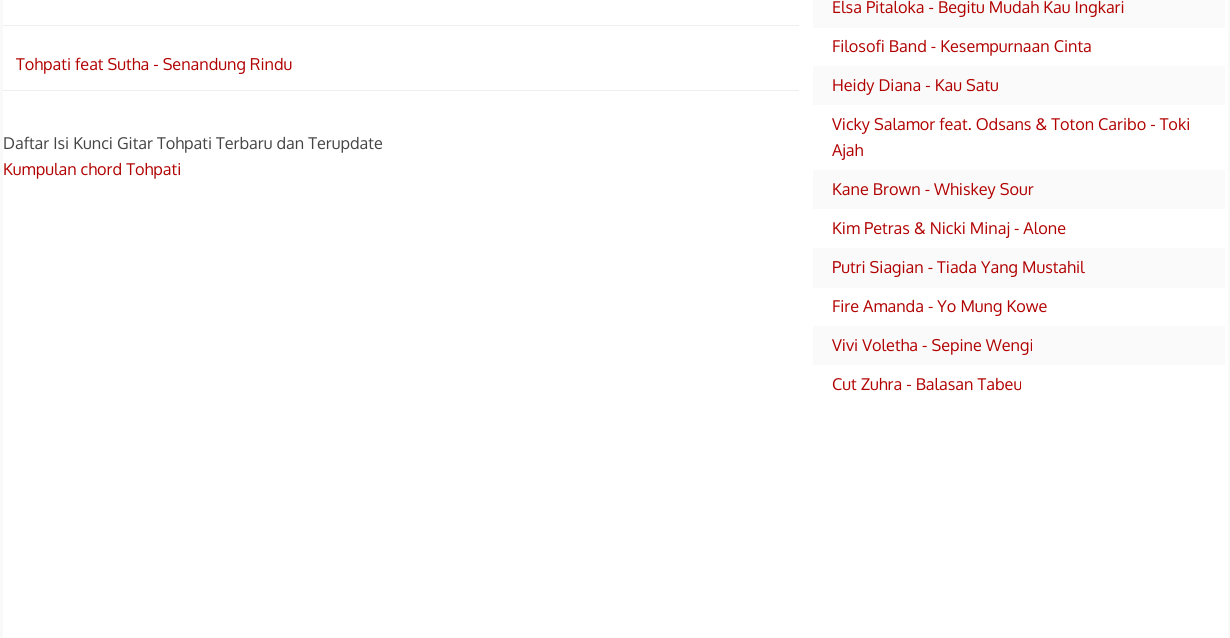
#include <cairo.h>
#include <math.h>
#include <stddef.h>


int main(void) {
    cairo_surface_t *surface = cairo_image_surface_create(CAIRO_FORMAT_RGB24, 1230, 638);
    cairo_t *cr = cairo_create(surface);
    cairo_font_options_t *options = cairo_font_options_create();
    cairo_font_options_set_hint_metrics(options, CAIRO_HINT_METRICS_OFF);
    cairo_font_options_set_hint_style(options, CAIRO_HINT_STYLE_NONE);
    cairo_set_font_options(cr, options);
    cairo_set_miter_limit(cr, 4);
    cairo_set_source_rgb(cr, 0.973, 0.973, 0.973);
    cairo_paint(cr);
    cairo_set_source_rgb(cr, 1, 1, 1);
    cairo_rectangle(cr, 3, 0, 1225, 638);
    cairo_fill(cr);
    cairo_set_source_rgb(cr, 0.933, 0.933, 0.933);
    cairo_rectangle(cr, 3, 25, 796, 1);
    cairo_fill(cr);
    cairo_rectangle(cr, 3, 90, 796, 1);
    cairo_fill(cr);
    cairo_select_font_face(cr, "Oxygen", CAIRO_FONT_SLANT_NORMAL, CAIRO_FONT_WEIGHT_NORMAL);
    cairo_set_font_size(cr, 16.25);
    cairo_set_source_rgb(cr, 0.694, 0, 0);
    cairo_move_to(cr, 16, 70);
    cairo_show_text(cr, "Tohpati feat Sutha - Senandung Rindu");
    cairo_set_source_rgb(cr, 0.267, 0.267, 0.267);
    cairo_move_to(cr, 3, 149);
    cairo_show_text(cr, "Daftar Isi Kunci Gitar Tohpati Terbaru dan Terupdate");
    cairo_set_source_rgb(cr, 0.694, 0, 0);
    cairo_move_to(cr, 3, 175);
    cairo_show_text(cr, "Kumpulan chord Tohpati");
    cairo_set_source_rgb(cr, 0.98, 0.98, 0.98);
    cairo_rectangle(cr, 813, 0, 412, 28);
    cairo_fill(cr);
    cairo_set_source_rgb(cr, 0.694, 0, 0);
    cairo_move_to(cr, 832, 13);
    cairo_show_text(cr, "Elsa Pitaloka - Begitu Mudah Kau Ingkari");
    cairo_move_to(cr, 832, 52);
    cairo_show_text(cr, "Filosofi Band - Kesempurnaan Cinta");
    cairo_set_source_rgb(cr, 0.98, 0.98, 0.98);
    cairo_rectangle(cr, 813, 66, 412, 39);
    cairo_fill(cr);
    cairo_set_source_rgb(cr, 0.694, 0, 0);
    cairo_move_to(cr, 832, 91);
    cairo_show_text(cr, "Heidy Diana - Kau Satu");
    cairo_move_to(cr, 832, 130);
    cairo_show_text(cr, "Vicky Salamor feat. Odsans & Toton Caribo - Toki");
    cairo_move_to(cr, 832, 156);
    cairo_show_text(cr, "Ajah");
    cairo_set_source_rgb(cr, 0.98, 0.98, 0.98);
    cairo_rectangle(cr, 813, 170, 412, 39);
    cairo_fill(cr);
    cairo_set_source_rgb(cr, 0.694, 0, 0);
    cairo_move_to(cr, 832, 195);
    cairo_show_text(cr, "Kane Brown - Whiskey Sour");
    cairo_move_to(cr, 832, 234);
    cairo_show_text(cr, "Kim Petras & Nicki Minaj - Alone");
    cairo_set_source_rgb(cr, 0.98, 0.98, 0.98);
    cairo_rectangle(cr, 813, 248, 412, 40);
    cairo_fill(cr);
    cairo_set_source_rgb(cr, 0.694, 0, 0);
    cairo_move_to(cr, 832, 273);
    cairo_show_text(cr, "Putri Siagian - Tiada Yang Mustahil");
    cairo_move_to(cr, 832, 312);
    cairo_show_text(cr, "Fire Amanda - Yo Mung Kowe");
    cairo_set_source_rgb(cr, 0.98, 0.98, 0.98);
    cairo_rectangle(cr, 813, 326, 412, 39);
    cairo_fill(cr);
    cairo_set_source_rgb(cr, 0.694, 0, 0);
    cairo_move_to(cr, 832, 351);
    cairo_show_text(cr, "Vivi Voletha - Sepine Wengi");
    cairo_move_to(cr, 832, 390);
    cairo_show_text(cr, "Cut Zuhra - Balasan Tabeu");
    cairo_surface_write_to_png(surface, "page.png");
    cairo_font_options_destroy(options);
    cairo_destroy(cr);
    cairo_surface_destroy(surface);
    return 0;
}
